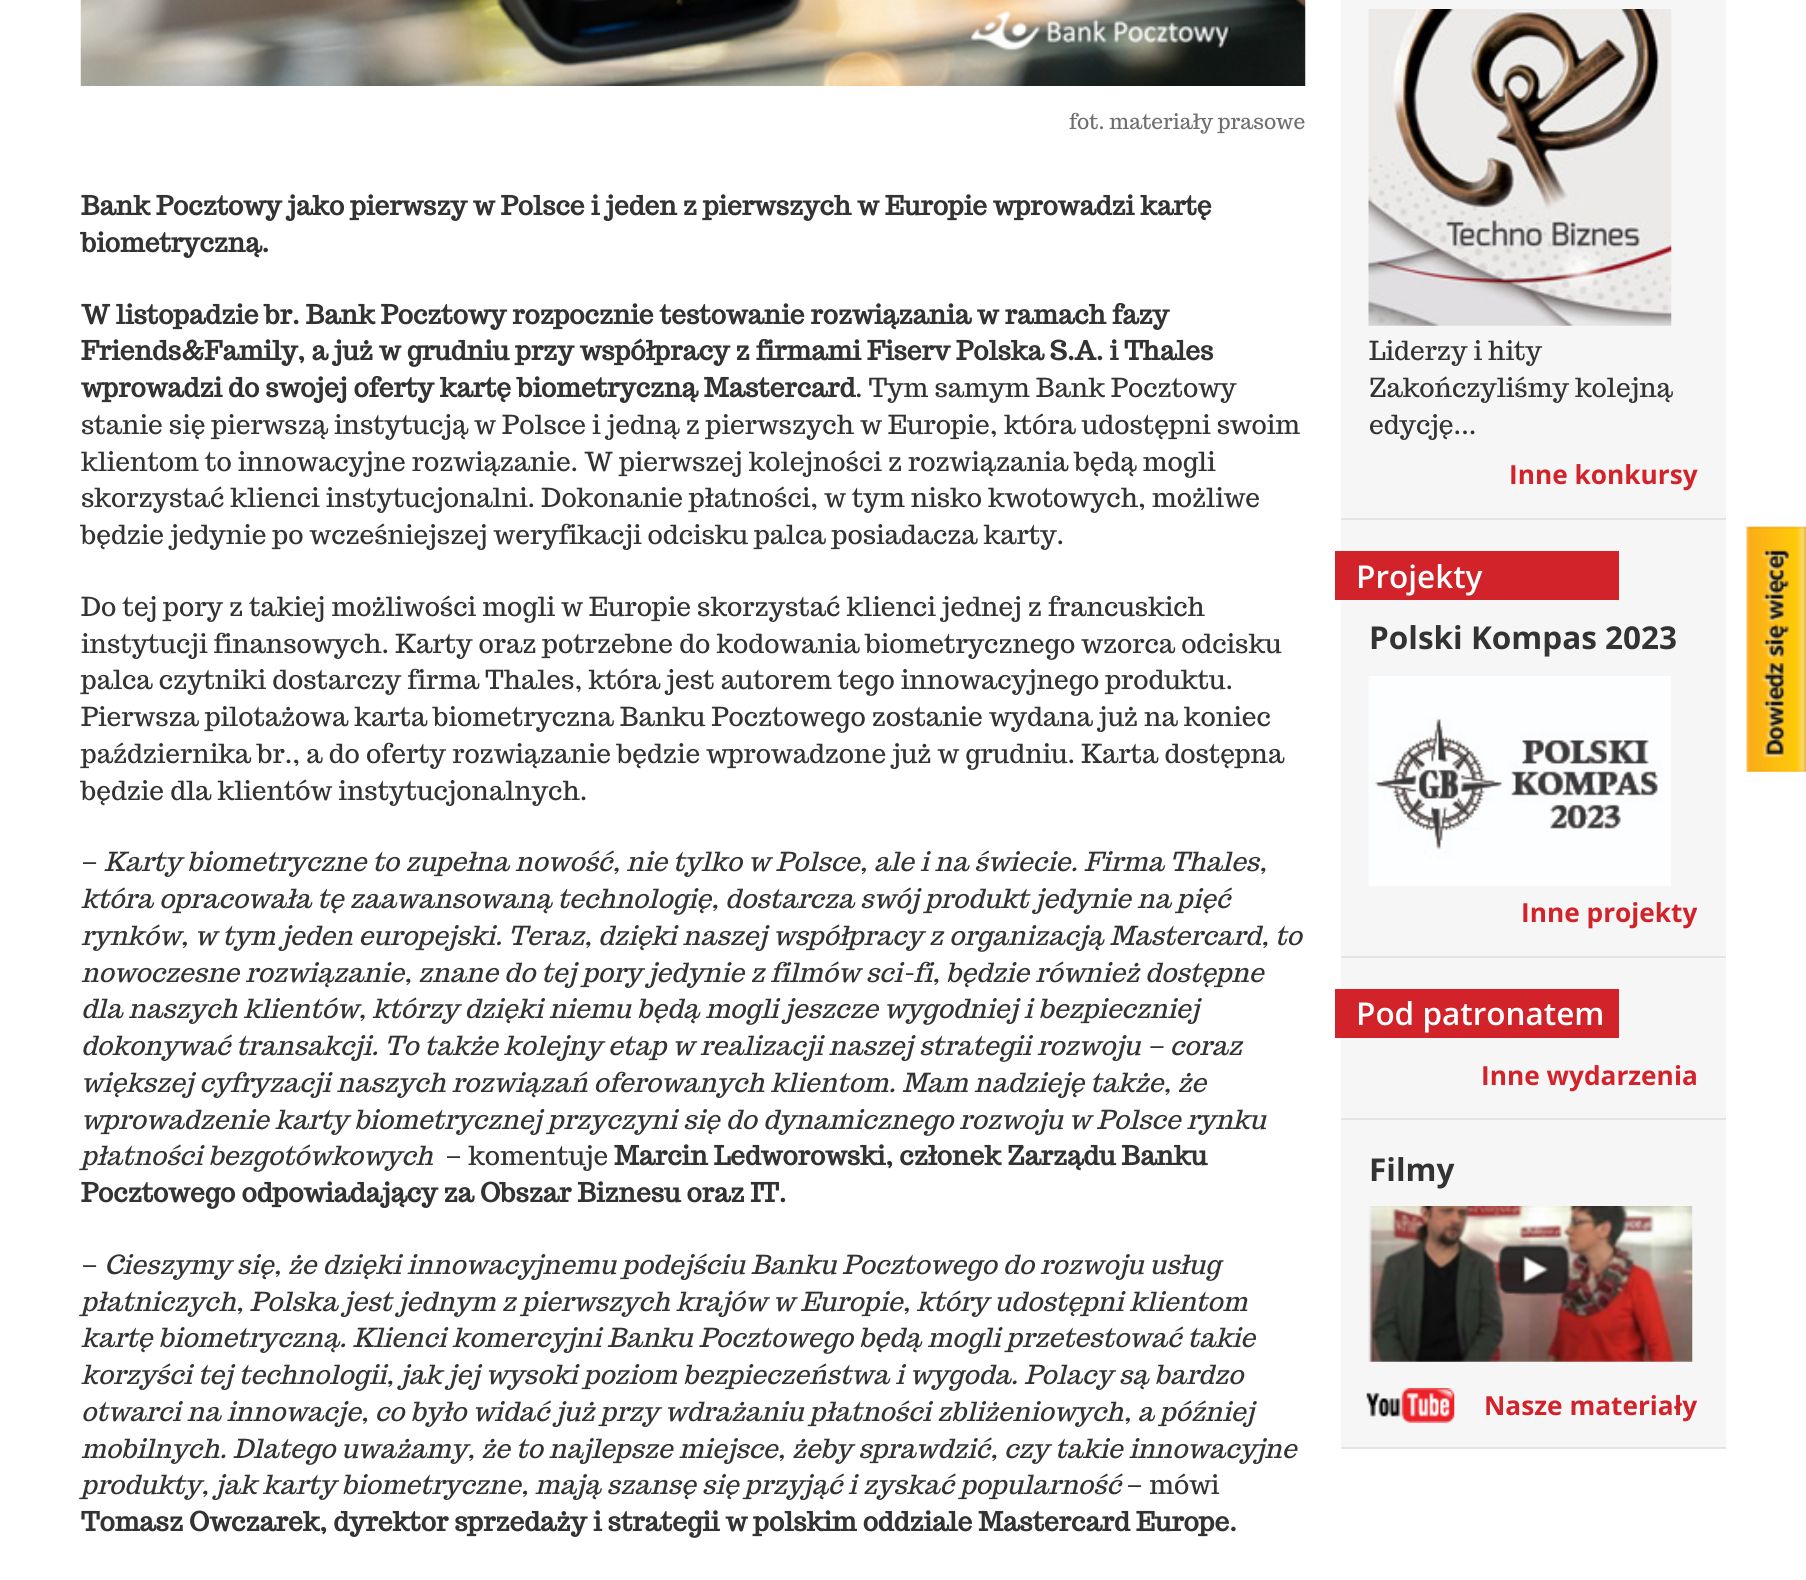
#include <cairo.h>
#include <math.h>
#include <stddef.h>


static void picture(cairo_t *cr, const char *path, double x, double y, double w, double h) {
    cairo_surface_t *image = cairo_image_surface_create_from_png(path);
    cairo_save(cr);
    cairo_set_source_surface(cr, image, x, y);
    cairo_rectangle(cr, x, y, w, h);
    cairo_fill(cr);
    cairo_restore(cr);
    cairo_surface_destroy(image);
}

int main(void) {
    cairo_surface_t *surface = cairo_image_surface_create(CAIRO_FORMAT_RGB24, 1806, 1580);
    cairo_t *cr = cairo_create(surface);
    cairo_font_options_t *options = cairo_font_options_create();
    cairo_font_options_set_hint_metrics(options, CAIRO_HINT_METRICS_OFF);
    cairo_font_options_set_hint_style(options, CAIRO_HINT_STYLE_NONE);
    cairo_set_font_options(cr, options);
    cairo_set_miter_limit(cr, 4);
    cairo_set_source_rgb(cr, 1, 1, 1);
    cairo_paint(cr);
    picture(cr, "img1.png", 80, 0, 1226, 86);
    cairo_select_font_face(cr, "Trocchi", CAIRO_FONT_SLANT_NORMAL, CAIRO_FONT_WEIGHT_NORMAL);
    cairo_set_font_size(cr, 21);
    cairo_set_source_rgb(cr, 0.435, 0.435, 0.435);
    cairo_move_to(cr, 1069, 129);
    cairo_show_text(cr, "fot. materiały prasowe");
    cairo_select_font_face(cr, "Trocchi", CAIRO_FONT_SLANT_NORMAL, CAIRO_FONT_WEIGHT_BOLD);
    cairo_set_font_size(cr, 26.25);
    cairo_set_source_rgb(cr, 0.2, 0.2, 0.2);
    cairo_move_to(cr, 81, 215);
    cairo_show_text(cr, "Bank Pocztowy jako pierwszy w Polsce i jeden z pierwszych w Europie wprowadzi kartę");
    cairo_move_to(cr, 81, 252);
    cairo_show_text(cr, "biometryczną.");
    cairo_move_to(cr, 81, 324);
    cairo_show_text(cr, "W listopadzie br. Bank Pocztowy rozpocznie testowanie rozwiązania w ramach fazy");
    cairo_move_to(cr, 81, 360);
    cairo_show_text(cr, "Friends&Family, a już w grudniu przy współpracy z firmami Fiserv Polska S.A. i Thales");
    cairo_move_to(cr, 81, 397);
    cairo_show_text(cr, "wprowadzi do swojej oferty kartę biometryczną Mastercard");
    cairo_select_font_face(cr, "Trocchi", CAIRO_FONT_SLANT_NORMAL, CAIRO_FONT_WEIGHT_NORMAL);
    cairo_move_to(cr, 855, 397);
    cairo_show_text(cr, ". Tym samym Bank Pocztowy");
    cairo_move_to(cr, 81, 434);
    cairo_show_text(cr, "stanie się pierwszą instytucją w Polsce i jedną z pierwszych w Europie, która udostępni swoim");
    cairo_move_to(cr, 81, 471);
    cairo_show_text(cr, "klientom to innowacyjne rozwiązanie. W pierwszej kolejności z rozwiązania będą mogli");
    cairo_move_to(cr, 81, 507);
    cairo_show_text(cr, "skorzystać klienci instytucjonalni. Dokonanie płatności, w tym nisko kwotowych, możliwe");
    cairo_move_to(cr, 81, 544);
    cairo_show_text(cr, "będzie jedynie po wcześniejszej weryfikacji odcisku palca posiadacza karty.");
    cairo_move_to(cr, 81, 616);
    cairo_show_text(cr, "Do tej pory z takiej możliwości mogli w Europie skorzystać klienci jednej z francuskich");
    cairo_move_to(cr, 81, 653);
    cairo_show_text(cr, "instytucji finansowych. Karty oraz potrzebne do kodowania biometrycznego wzorca odcisku");
    cairo_move_to(cr, 81, 689);
    cairo_show_text(cr, "palca czytniki dostarczy firma Thales, która jest autorem tego innowacyjnego produktu.");
    cairo_move_to(cr, 81, 726);
    cairo_show_text(cr, "Pierwsza pilotażowa karta biometryczna Banku Pocztowego zostanie wydana już na koniec");
    cairo_move_to(cr, 81, 763);
    cairo_show_text(cr, "października br., a do oferty rozwiązanie będzie wprowadzone już w grudniu. Karta dostępna");
    cairo_move_to(cr, 81, 800);
    cairo_show_text(cr, "będzie dla klientów instytucjonalnych.");
    cairo_move_to(cr, 81, 871);
    cairo_show_text(cr, "–");
    cairo_select_font_face(cr, "Trocchi", CAIRO_FONT_SLANT_ITALIC, CAIRO_FONT_WEIGHT_NORMAL);
    cairo_move_to(cr, 104, 871);
    cairo_show_text(cr, "Karty biometryczne to zupełna nowość, nie tylko w Polsce, ale i na świecie. Firma Thales,");
    cairo_move_to(cr, 81, 908);
    cairo_show_text(cr, "która opracowała tę zaawansowaną technologię, dostarcza swój produkt jedynie na pięć");
    cairo_move_to(cr, 81, 945);
    cairo_show_text(cr, "rynków, w tym jeden europejski. Teraz, dzięki naszej współpracy z organizacją Mastercard, to");
    cairo_move_to(cr, 81, 982);
    cairo_show_text(cr, "nowoczesne rozwiązanie, znane do tej pory jedynie z filmów sci-fi, będzie również dostępne");
    cairo_move_to(cr, 81, 1018);
    cairo_show_text(cr, "dla naszych klientów, którzy dzięki niemu będą mogli jeszcze wygodniej i bezpieczniej");
    cairo_move_to(cr, 81, 1055);
    cairo_show_text(cr, "dokonywać transakcji. To także kolejny etap w realizacji naszej strategii rozwoju – coraz");
    cairo_move_to(cr, 81, 1092);
    cairo_show_text(cr, "większej cyfryzacji naszych rozwiązań oferowanych klientom. Mam nadzieję także, że");
    cairo_move_to(cr, 81, 1129);
    cairo_show_text(cr, "wprowadzenie karty biometrycznej przyczyni się do dynamicznego rozwoju w Polsce rynku");
    cairo_move_to(cr, 81, 1165);
    cairo_show_text(cr, "płatności bezgotówkowych");
    cairo_select_font_face(cr, "Trocchi", CAIRO_FONT_SLANT_NORMAL, CAIRO_FONT_WEIGHT_NORMAL);
    cairo_move_to(cr, 445, 1165);
    cairo_show_text(cr, "– komentuje");
    cairo_select_font_face(cr, "Trocchi", CAIRO_FONT_SLANT_NORMAL, CAIRO_FONT_WEIGHT_BOLD);
    cairo_move_to(cr, 614, 1165);
    cairo_show_text(cr, "Marcin Ledworowski, członek Zarządu Banku");
    cairo_move_to(cr, 81, 1202);
    cairo_show_text(cr, "Pocztowego odpowiadający za Obszar Biznesu oraz IT.");
    cairo_select_font_face(cr, "Trocchi", CAIRO_FONT_SLANT_NORMAL, CAIRO_FONT_WEIGHT_NORMAL);
    cairo_move_to(cr, 81, 1274);
    cairo_show_text(cr, "–");
    cairo_select_font_face(cr, "Trocchi", CAIRO_FONT_SLANT_ITALIC, CAIRO_FONT_WEIGHT_NORMAL);
    cairo_move_to(cr, 104, 1274);
    cairo_show_text(cr, "Cieszymy się, że dzięki innowacyjnemu podejściu Banku Pocztowego do rozwoju usług");
    cairo_move_to(cr, 81, 1311);
    cairo_show_text(cr, "płatniczych, Polska jest jednym z pierwszych krajów w Europie, który udostępni klientom");
    cairo_move_to(cr, 81, 1347);
    cairo_show_text(cr, "kartę biometryczną. Klienci komercyjni Banku Pocztowego będą mogli przetestować takie");
    cairo_move_to(cr, 81, 1384);
    cairo_show_text(cr, "korzyści tej technologii, jak jej wysoki poziom bezpieczeństwa i wygoda. Polacy są bardzo");
    cairo_move_to(cr, 81, 1421);
    cairo_show_text(cr, "otwarci na innowacje, co było widać już przy wdrażaniu płatności zbliżeniowych, a później");
    cairo_move_to(cr, 81, 1458);
    cairo_show_text(cr, "mobilnych. Dlatego uważamy, że to najlepsze miejsce, żeby sprawdzić, czy takie innowacyjne");
    cairo_move_to(cr, 81, 1494);
    cairo_show_text(cr, "produkty, jak karty biometryczne, mają szansę się przyjąć i zyskać popularność");
    cairo_select_font_face(cr, "Trocchi", CAIRO_FONT_SLANT_NORMAL, CAIRO_FONT_WEIGHT_NORMAL);
    cairo_move_to(cr, 1126, 1494);
    cairo_show_text(cr, "– mówi");
    cairo_select_font_face(cr, "Trocchi", CAIRO_FONT_SLANT_NORMAL, CAIRO_FONT_WEIGHT_BOLD);
    cairo_move_to(cr, 81, 1531);
    cairo_show_text(cr, "Tomasz Owczarek, dyrektor sprzedaży i strategii w polskim oddziale Mastercard Europe.");
    cairo_set_source_rgb(cr, 0.961, 0.961, 0.961);
    cairo_rectangle(cr, 1341, 0, 385, 1447);
    cairo_fill(cr);
    cairo_set_source_rgb(cr, 0.894, 0.894, 0.894);
    cairo_rectangle(cr, 1341, 518, 385, 2);
    cairo_fill(cr);
    picture(cr, "img2.png", 1368, 9, 304, 317);
    cairo_select_font_face(cr, "Trocchi", CAIRO_FONT_SLANT_NORMAL, CAIRO_FONT_WEIGHT_NORMAL);
    cairo_set_source_rgb(cr, 0.2, 0.2, 0.2);
    cairo_move_to(cr, 1369, 360);
    cairo_show_text(cr, "Liderzy i hity");
    cairo_move_to(cr, 1369, 397);
    cairo_show_text(cr, "Zakończyliśmy kolejną");
    cairo_move_to(cr, 1369, 434);
    cairo_show_text(cr, "edycję...");
    cairo_select_font_face(cr, "Open Sans", CAIRO_FONT_SLANT_NORMAL, CAIRO_FONT_WEIGHT_BOLD);
    cairo_set_source_rgb(cr, 0.824, 0.137, 0.165);
    cairo_move_to(cr, 1509, 484);
    cairo_show_text(cr, "Inne konkursy");
    cairo_set_source_rgb(cr, 0.894, 0.894, 0.894);
    cairo_rectangle(cr, 1341, 956, 385, 2);
    cairo_fill(cr);
    cairo_set_source_rgb(cr, 0.824, 0.137, 0.165);
    cairo_rectangle(cr, 1335, 551, 284, 49);
    cairo_fill(cr);
    cairo_select_font_face(cr, "Open Sans SemiBold", CAIRO_FONT_SLANT_NORMAL, CAIRO_FONT_WEIGHT_NORMAL);
    cairo_set_font_size(cr, 31.5);
    cairo_set_source_rgb(cr, 1, 1, 1);
    cairo_move_to(cr, 1356, 588);
    cairo_show_text(cr, "Projekty");
    cairo_select_font_face(cr, "Open Sans", CAIRO_FONT_SLANT_NORMAL, CAIRO_FONT_WEIGHT_BOLD);
    cairo_set_source_rgb(cr, 0.2, 0.2, 0.2);
    cairo_move_to(cr, 1369, 649);
    cairo_show_text(cr, "Polski Kompas 2023");
    picture(cr, "img3.png", 1368, 676, 303, 210);
    cairo_set_font_size(cr, 26.25);
    cairo_set_source_rgb(cr, 0.824, 0.137, 0.165);
    cairo_move_to(cr, 1521, 922);
    cairo_show_text(cr, "Inne projekty");
    cairo_set_source_rgb(cr, 0.894, 0.894, 0.894);
    cairo_rectangle(cr, 1341, 1118, 385, 2);
    cairo_fill(cr);
    cairo_set_source_rgb(cr, 0.824, 0.137, 0.165);
    cairo_rectangle(cr, 1335, 989, 284, 49);
    cairo_fill(cr);
    cairo_select_font_face(cr, "Open Sans SemiBold", CAIRO_FONT_SLANT_NORMAL, CAIRO_FONT_WEIGHT_NORMAL);
    cairo_set_font_size(cr, 31.5);
    cairo_set_source_rgb(cr, 1, 1, 1);
    cairo_move_to(cr, 1356, 1025);
    cairo_show_text(cr, "Pod patronatem");
    cairo_select_font_face(cr, "Open Sans", CAIRO_FONT_SLANT_NORMAL, CAIRO_FONT_WEIGHT_BOLD);
    cairo_set_font_size(cr, 26.25);
    cairo_set_source_rgb(cr, 0.824, 0.137, 0.165);
    cairo_move_to(cr, 1481, 1085);
    cairo_show_text(cr, "Inne wydarzenia");
    cairo_set_source_rgb(cr, 0.894, 0.894, 0.894);
    cairo_rectangle(cr, 1341, 1447, 385, 2);
    cairo_fill(cr);
    cairo_set_font_size(cr, 31.5);
    cairo_set_source_rgb(cr, 0.2, 0.2, 0.2);
    cairo_move_to(cr, 1369, 1181);
    cairo_show_text(cr, "Filmy");
    picture(cr, "img4.png", 1368, 1206, 325, 156);
    picture(cr, "img5.png", 1366, 1388, 89, 35);
    cairo_set_font_size(cr, 26.25);
    cairo_set_source_rgb(cr, 0.824, 0.137, 0.165);
    cairo_move_to(cr, 1484, 1415);
    cairo_show_text(cr, "Nasze materiały");
    picture(cr, "img6.png", 1746, 526, 60, 246);
    cairo_surface_write_to_png(surface, "page.png");
    cairo_font_options_destroy(options);
    cairo_destroy(cr);
    cairo_surface_destroy(surface);
    return 0;
}
